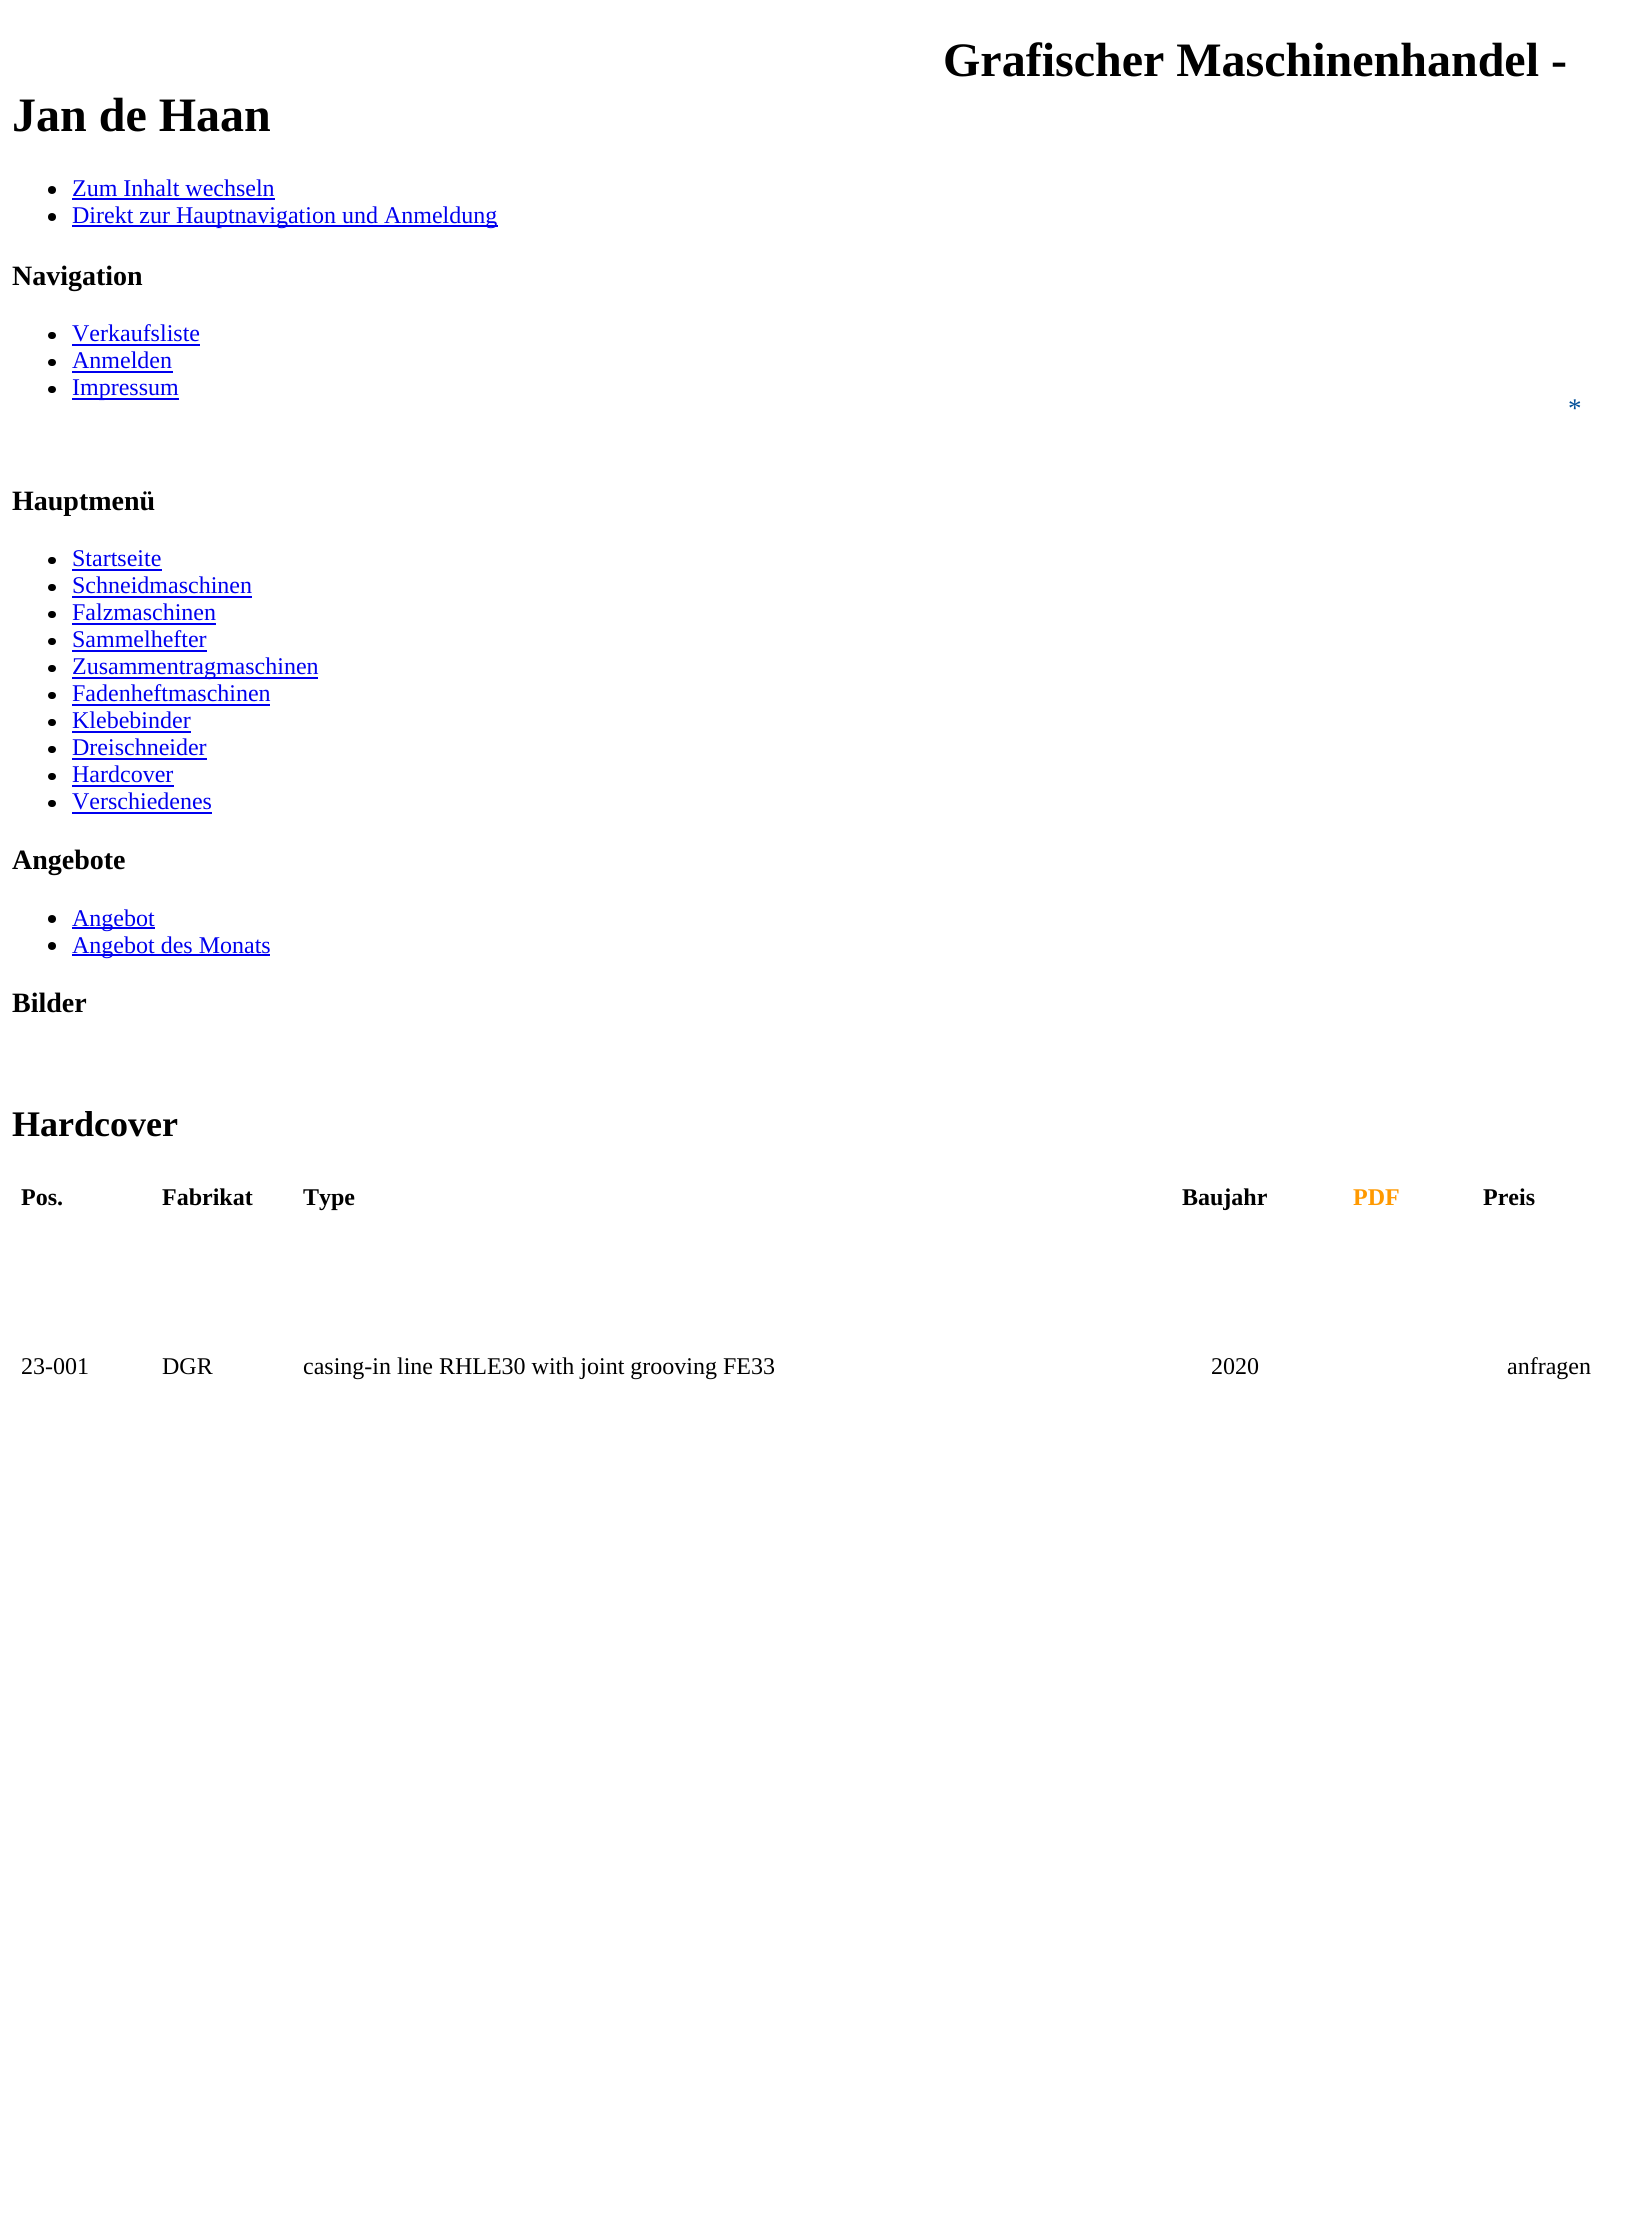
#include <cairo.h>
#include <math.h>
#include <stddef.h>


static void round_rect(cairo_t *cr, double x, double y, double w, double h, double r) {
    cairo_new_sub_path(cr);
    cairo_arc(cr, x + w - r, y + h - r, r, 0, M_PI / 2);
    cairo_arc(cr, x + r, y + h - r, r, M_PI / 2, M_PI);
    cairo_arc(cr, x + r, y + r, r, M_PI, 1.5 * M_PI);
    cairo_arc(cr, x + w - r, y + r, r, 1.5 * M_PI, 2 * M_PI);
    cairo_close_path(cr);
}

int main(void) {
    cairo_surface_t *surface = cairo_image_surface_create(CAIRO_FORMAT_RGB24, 1635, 2213);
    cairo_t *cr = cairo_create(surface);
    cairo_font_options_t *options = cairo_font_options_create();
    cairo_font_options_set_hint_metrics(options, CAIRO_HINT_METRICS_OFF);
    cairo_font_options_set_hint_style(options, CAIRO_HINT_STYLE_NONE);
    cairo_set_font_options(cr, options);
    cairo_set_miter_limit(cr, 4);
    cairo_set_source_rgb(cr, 1, 1, 1);
    cairo_paint(cr);
    cairo_select_font_face(cr, "Liberation Serif", CAIRO_FONT_SLANT_NORMAL, CAIRO_FONT_WEIGHT_BOLD);
    cairo_set_font_size(cr, 48);
    cairo_set_source_rgb(cr, 0, 0, 0);
    cairo_move_to(cr, 943, 76);
    cairo_show_text(cr, "Grafischer Maschinenhandel -");
    cairo_move_to(cr, 12, 131);
    cairo_show_text(cr, "Jan de Haan");
    cairo_new_path(cr);
    cairo_arc(cr, 52, 190, 4, 0, 2 * M_PI);
    cairo_fill(cr);
    cairo_select_font_face(cr, "Liberation Serif", CAIRO_FONT_SLANT_NORMAL, CAIRO_FONT_WEIGHT_NORMAL);
    cairo_set_font_size(cr, 24);
    cairo_set_source_rgb(cr, 0, 0, 0.933);
    cairo_move_to(cr, 72, 196);
    cairo_show_text(cr, "Zum Inhalt wechseln");
    cairo_rectangle(cr, 72, 198, 203, 2);
    cairo_fill(cr);
    cairo_set_source_rgb(cr, 0, 0, 0);
    cairo_arc(cr, 52, 217, 4, 0, 2 * M_PI);
    cairo_fill(cr);
    cairo_set_source_rgb(cr, 0, 0, 0.933);
    cairo_rectangle(cr, 72, 225, 426, 2);
    cairo_fill(cr);
    cairo_move_to(cr, 72, 223);
    cairo_show_text(cr, "Direkt zur Hauptnavigation und Anmeldung");
    cairo_select_font_face(cr, "Liberation Serif", CAIRO_FONT_SLANT_NORMAL, CAIRO_FONT_WEIGHT_BOLD);
    cairo_set_font_size(cr, 28);
    cairo_set_source_rgb(cr, 0, 0, 0);
    cairo_move_to(cr, 12, 285);
    cairo_show_text(cr, "Navigation");
    round_rect(cr, 48, 332, 8, 7, 3.5);
    cairo_fill(cr);
    cairo_select_font_face(cr, "Liberation Serif", CAIRO_FONT_SLANT_NORMAL, CAIRO_FONT_WEIGHT_NORMAL);
    cairo_set_font_size(cr, 24);
    cairo_set_source_rgb(cr, 0, 0, 0.933);
    cairo_move_to(cr, 72, 341);
    cairo_show_text(cr, "Verkaufsliste");
    cairo_rectangle(cr, 72, 344, 128, 2);
    cairo_fill(cr);
    cairo_set_source_rgb(cr, 0, 0, 0);
    round_rect(cr, 48, 359, 8, 7, 3.5);
    cairo_fill(cr);
    cairo_set_source_rgb(cr, 0, 0, 0.933);
    cairo_move_to(cr, 72, 368);
    cairo_show_text(cr, "Anmelden");
    cairo_rectangle(cr, 72, 371, 101, 2);
    cairo_fill(cr);
    cairo_set_source_rgb(cr, 0, 0, 0);
    round_rect(cr, 48, 386, 8, 7, 3.5);
    cairo_fill(cr);
    cairo_set_source_rgb(cr, 0, 0, 0.933);
    cairo_rectangle(cr, 72, 398, 107, 2);
    cairo_fill(cr);
    cairo_move_to(cr, 72, 395);
    cairo_show_text(cr, "Impressum");
    cairo_set_font_size(cr, 27);
    cairo_set_source_rgb(cr, 0, 0.306, 0.596);
    cairo_move_to(cr, 1568, 417);
    cairo_show_text(cr, "*");
    cairo_select_font_face(cr, "Liberation Serif", CAIRO_FONT_SLANT_NORMAL, CAIRO_FONT_WEIGHT_BOLD);
    cairo_set_font_size(cr, 28);
    cairo_set_source_rgb(cr, 0, 0, 0);
    cairo_move_to(cr, 12, 510);
    cairo_show_text(cr, "Hauptmenü");
    round_rect(cr, 48, 557, 8, 7, 3.5);
    cairo_fill(cr);
    cairo_select_font_face(cr, "Liberation Serif", CAIRO_FONT_SLANT_NORMAL, CAIRO_FONT_WEIGHT_NORMAL);
    cairo_set_font_size(cr, 24);
    cairo_set_source_rgb(cr, 0, 0, 0.933);
    cairo_move_to(cr, 72, 566);
    cairo_show_text(cr, "Startseite");
    cairo_rectangle(cr, 72, 569, 90, 2);
    cairo_fill(cr);
    cairo_set_source_rgb(cr, 0, 0, 0);
    round_rect(cr, 48, 584, 8, 7, 3.5);
    cairo_fill(cr);
    cairo_set_source_rgb(cr, 0, 0, 0.933);
    cairo_move_to(cr, 72, 593);
    cairo_show_text(cr, "Schneidmaschinen");
    cairo_rectangle(cr, 72, 596, 180, 2);
    cairo_fill(cr);
    cairo_set_source_rgb(cr, 0, 0, 0);
    round_rect(cr, 48, 611, 8, 7, 3.5);
    cairo_fill(cr);
    cairo_set_source_rgb(cr, 0, 0, 0.933);
    cairo_move_to(cr, 72, 620);
    cairo_show_text(cr, "Falzmaschinen");
    cairo_rectangle(cr, 72, 623, 144, 2);
    cairo_fill(cr);
    cairo_set_source_rgb(cr, 0, 0, 0);
    round_rect(cr, 48, 638, 8, 7, 3.5);
    cairo_fill(cr);
    cairo_set_source_rgb(cr, 0, 0, 0.933);
    cairo_move_to(cr, 72, 647);
    cairo_show_text(cr, "Sammelhefter");
    cairo_rectangle(cr, 72, 650, 135, 2);
    cairo_fill(cr);
    cairo_set_source_rgb(cr, 0, 0, 0);
    round_rect(cr, 48, 665, 8, 7, 3.5);
    cairo_fill(cr);
    cairo_set_source_rgb(cr, 0, 0, 0.933);
    cairo_rectangle(cr, 72, 677, 246, 2);
    cairo_fill(cr);
    cairo_move_to(cr, 72, 674);
    cairo_show_text(cr, "Zusammentragmaschinen");
    cairo_set_source_rgb(cr, 0, 0, 0);
    round_rect(cr, 48, 692, 8, 7, 3.5);
    cairo_fill(cr);
    cairo_set_source_rgb(cr, 0, 0, 0.933);
    cairo_move_to(cr, 72, 701);
    cairo_show_text(cr, "Fadenheftmaschinen");
    cairo_rectangle(cr, 72, 704, 198, 2);
    cairo_fill(cr);
    cairo_set_source_rgb(cr, 0, 0, 0);
    round_rect(cr, 48, 719, 8, 7, 3.5);
    cairo_fill(cr);
    cairo_set_source_rgb(cr, 0, 0, 0.933);
    cairo_move_to(cr, 72, 728);
    cairo_show_text(cr, "Klebebinder");
    cairo_rectangle(cr, 72, 731, 119, 2);
    cairo_fill(cr);
    cairo_set_source_rgb(cr, 0, 0, 0);
    round_rect(cr, 48, 746, 8, 7, 3.5);
    cairo_fill(cr);
    cairo_set_source_rgb(cr, 0, 0, 0.933);
    cairo_move_to(cr, 72, 755);
    cairo_show_text(cr, "Dreischneider");
    cairo_rectangle(cr, 72, 758, 135, 2);
    cairo_fill(cr);
    cairo_set_source_rgb(cr, 0, 0, 0);
    round_rect(cr, 48, 773, 8, 7, 3.5);
    cairo_fill(cr);
    cairo_set_source_rgb(cr, 0, 0, 0.933);
    cairo_move_to(cr, 72, 782);
    cairo_show_text(cr, "Hardcover");
    cairo_rectangle(cr, 72, 785, 102, 2);
    cairo_fill(cr);
    cairo_set_source_rgb(cr, 0, 0, 0);
    round_rect(cr, 48, 800, 8, 7, 3.5);
    cairo_fill(cr);
    cairo_set_source_rgb(cr, 0, 0, 0.933);
    cairo_move_to(cr, 72, 809);
    cairo_show_text(cr, "Verschiedenes");
    cairo_rectangle(cr, 72, 812, 140, 2);
    cairo_fill(cr);
    cairo_select_font_face(cr, "Liberation Serif", CAIRO_FONT_SLANT_NORMAL, CAIRO_FONT_WEIGHT_BOLD);
    cairo_set_font_size(cr, 28);
    cairo_set_source_rgb(cr, 0, 0, 0);
    cairo_move_to(cr, 12, 869);
    cairo_show_text(cr, "Angebote");
    cairo_new_path(cr);
    cairo_arc(cr, 52, 919, 4, 0, 2 * M_PI);
    cairo_fill(cr);
    cairo_set_source_rgb(cr, 0, 0, 0.933);
    cairo_rectangle(cr, 72, 927, 83, 2);
    cairo_fill(cr);
    cairo_select_font_face(cr, "Liberation Serif", CAIRO_FONT_SLANT_NORMAL, CAIRO_FONT_WEIGHT_NORMAL);
    cairo_set_font_size(cr, 24);
    cairo_move_to(cr, 72, 926);
    cairo_show_text(cr, "Angebot");
    cairo_set_source_rgb(cr, 0, 0, 0);
    cairo_new_path(cr);
    cairo_arc(cr, 52, 946, 4, 0, 2 * M_PI);
    cairo_fill(cr);
    cairo_set_source_rgb(cr, 0, 0, 0.933);
    cairo_rectangle(cr, 72, 954, 198, 2);
    cairo_fill(cr);
    cairo_move_to(cr, 72, 953);
    cairo_show_text(cr, "Angebot des Monats");
    cairo_select_font_face(cr, "Liberation Serif", CAIRO_FONT_SLANT_NORMAL, CAIRO_FONT_WEIGHT_BOLD);
    cairo_set_font_size(cr, 28);
    cairo_set_source_rgb(cr, 0, 0, 0);
    cairo_move_to(cr, 12, 1012);
    cairo_show_text(cr, "Bilder");
    cairo_set_font_size(cr, 36);
    cairo_move_to(cr, 12, 1136);
    cairo_show_text(cr, "Hardcover");
    cairo_set_font_size(cr, 24);
    cairo_move_to(cr, 21, 1205);
    cairo_show_text(cr, "Pos.");
    cairo_move_to(cr, 162, 1205);
    cairo_show_text(cr, "Fabrikat");
    cairo_move_to(cr, 303, 1205);
    cairo_show_text(cr, "Type");
    cairo_move_to(cr, 1182, 1205);
    cairo_show_text(cr, "Baujahr");
    cairo_set_source_rgb(cr, 1, 0.6, 0);
    cairo_move_to(cr, 1353, 1205);
    cairo_show_text(cr, "PDF");
    cairo_set_source_rgb(cr, 0, 0, 0);
    cairo_move_to(cr, 1483, 1205);
    cairo_show_text(cr, "Preis");
    cairo_select_font_face(cr, "Liberation Serif", CAIRO_FONT_SLANT_NORMAL, CAIRO_FONT_WEIGHT_NORMAL);
    cairo_move_to(cr, 21, 1374);
    cairo_show_text(cr, "23-001");
    cairo_move_to(cr, 162, 1374);
    cairo_show_text(cr, "DGR");
    cairo_move_to(cr, 303, 1374);
    cairo_show_text(cr, "casing-in line RHLE30 with joint grooving FE33");
    cairo_move_to(cr, 1211, 1374);
    cairo_show_text(cr, "2020");
    cairo_move_to(cr, 1507, 1374);
    cairo_show_text(cr, "anfragen");
    cairo_surface_write_to_png(surface, "page.png");
    cairo_font_options_destroy(options);
    cairo_destroy(cr);
    cairo_surface_destroy(surface);
    return 0;
}
